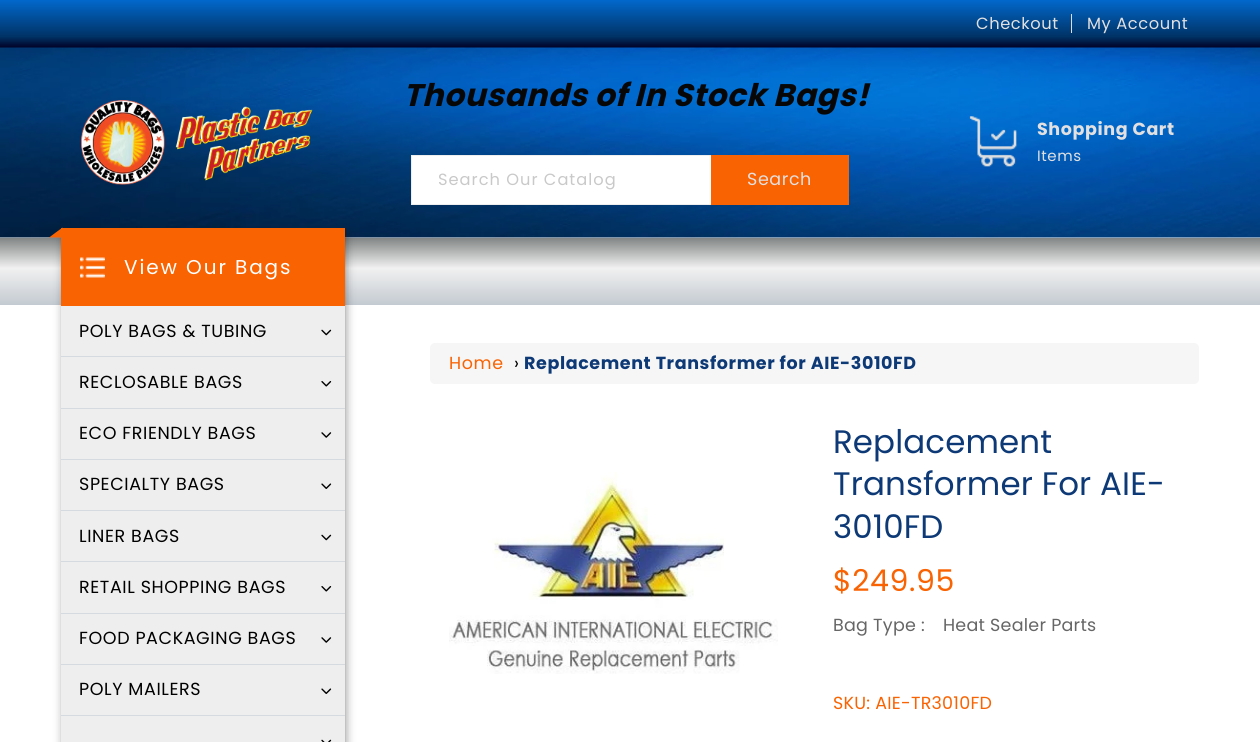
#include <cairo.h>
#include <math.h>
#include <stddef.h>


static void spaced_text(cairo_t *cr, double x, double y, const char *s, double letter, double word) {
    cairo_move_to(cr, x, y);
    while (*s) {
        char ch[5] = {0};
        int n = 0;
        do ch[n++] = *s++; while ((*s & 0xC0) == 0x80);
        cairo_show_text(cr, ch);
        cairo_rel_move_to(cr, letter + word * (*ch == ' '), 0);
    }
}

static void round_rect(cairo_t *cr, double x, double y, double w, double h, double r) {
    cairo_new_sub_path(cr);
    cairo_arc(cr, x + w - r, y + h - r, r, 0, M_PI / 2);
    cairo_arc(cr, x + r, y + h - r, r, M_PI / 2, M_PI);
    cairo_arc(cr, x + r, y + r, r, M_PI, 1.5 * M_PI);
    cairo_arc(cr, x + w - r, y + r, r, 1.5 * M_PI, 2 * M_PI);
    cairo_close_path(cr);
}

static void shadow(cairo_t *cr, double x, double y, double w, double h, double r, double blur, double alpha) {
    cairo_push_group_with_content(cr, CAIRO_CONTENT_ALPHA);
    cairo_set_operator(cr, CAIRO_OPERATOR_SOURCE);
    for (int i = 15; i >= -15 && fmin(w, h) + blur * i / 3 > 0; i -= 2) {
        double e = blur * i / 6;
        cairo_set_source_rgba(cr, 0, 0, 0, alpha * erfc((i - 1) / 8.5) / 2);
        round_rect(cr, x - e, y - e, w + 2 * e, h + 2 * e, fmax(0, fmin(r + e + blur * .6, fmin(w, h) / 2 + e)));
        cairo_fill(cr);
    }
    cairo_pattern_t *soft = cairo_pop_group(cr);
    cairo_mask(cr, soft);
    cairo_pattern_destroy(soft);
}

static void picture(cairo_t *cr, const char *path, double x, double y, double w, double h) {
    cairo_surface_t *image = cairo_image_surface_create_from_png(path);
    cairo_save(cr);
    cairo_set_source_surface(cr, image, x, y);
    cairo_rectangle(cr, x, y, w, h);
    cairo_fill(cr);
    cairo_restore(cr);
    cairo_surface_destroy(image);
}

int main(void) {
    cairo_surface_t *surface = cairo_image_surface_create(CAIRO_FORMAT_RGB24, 1260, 742);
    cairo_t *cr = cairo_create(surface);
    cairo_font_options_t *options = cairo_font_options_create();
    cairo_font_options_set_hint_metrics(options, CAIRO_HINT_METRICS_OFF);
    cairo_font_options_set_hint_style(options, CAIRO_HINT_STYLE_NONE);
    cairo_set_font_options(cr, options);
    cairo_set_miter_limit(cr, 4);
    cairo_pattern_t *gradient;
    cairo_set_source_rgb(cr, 1, 1, 1);
    cairo_paint(cr);
    gradient = cairo_pattern_create_linear(630, 48, 630, 0);
    cairo_pattern_add_color_stop_rgba(gradient, 0, 0.008, 0, 0.141, 1);
    cairo_pattern_add_color_stop_rgba(gradient, 0.24, 0, 0.2, 0.4, 1);
    cairo_pattern_add_color_stop_rgba(gradient, 1, 0.008, 0.408, 0.8, 1);
    cairo_set_source(cr, gradient);
    cairo_pattern_destroy(gradient);
    cairo_rectangle(cr, 0, 0, 1260, 48);
    cairo_fill(cr);
    cairo_select_font_face(cr, "Poppins", CAIRO_FONT_SLANT_NORMAL, CAIRO_FONT_WEIGHT_NORMAL);
    cairo_set_font_size(cr, 16.25);
    cairo_set_source_rgb(cr, 0.886, 0.878, 0.878);
    spaced_text(cr, 976, 29, "Checkout", 0.6, 0);
    cairo_set_source_rgb(cr, 0.867, 0.867, 0.867);
    cairo_rectangle(cr, 1071, 14, 1, 19);
    cairo_fill(cr);
    cairo_set_source_rgb(cr, 0.886, 0.878, 0.878);
    spaced_text(cr, 1087, 29, "My Account", 0.6, 0);
    picture(cr, "img1.png", 0, 47, 1260, 191);
    picture(cr, "img2.png", 81, 100, 232, 85);
    cairo_select_font_face(cr, "Poppins", CAIRO_FONT_SLANT_ITALIC, CAIRO_FONT_WEIGHT_BOLD);
    cairo_set_font_size(cr, 31.25);
    cairo_set_source_rgb(cr, 0.031, 0.031, 0.031);
    spaced_text(cr, 403, 106, "Thousands of In Stock Bags!", 0.6, 0);
    cairo_set_source_rgb(cr, 1, 1, 1);
    cairo_rectangle(cr, 412, 156, 299, 48);
    cairo_fill(cr);
    cairo_rectangle(cr, 411.5, 155.5, 437, 49);
    cairo_set_source_rgb(cr, 0.933, 0.933, 0.933);
    cairo_set_line_width(cr, 1);
    cairo_stroke(cr);
    cairo_select_font_face(cr, "Poppins", CAIRO_FONT_SLANT_NORMAL, CAIRO_FONT_WEIGHT_NORMAL);
    cairo_set_font_size(cr, 16.25);
    cairo_set_source_rgb(cr, 0.788, 0.788, 0.788);
    spaced_text(cr, 438, 185, "Search Our Catalog", 1, 0);
    cairo_set_source_rgb(cr, 0.976, 0.388, 0.008);
    cairo_rectangle(cr, 711, 155, 138, 50);
    cairo_fill(cr);
    cairo_set_font_size(cr, 17.5);
    cairo_set_source_rgb(cr, 0.886, 0.878, 0.878);
    spaced_text(cr, 747, 185, "Search", 0.6, 0);
    picture(cr, "img3.png", 969, 116, 48, 51);
    cairo_select_font_face(cr, "Poppins", CAIRO_FONT_SLANT_NORMAL, CAIRO_FONT_WEIGHT_BOLD);
    spaced_text(cr, 1037, 135, "Shopping Cart", 0.6, 0);
    cairo_select_font_face(cr, "Poppins", CAIRO_FONT_SLANT_NORMAL, CAIRO_FONT_WEIGHT_NORMAL);
    cairo_set_font_size(cr, 15);
    spaced_text(cr, 1037, 161, "Items", 0.6, 0);
    gradient = cairo_pattern_create_linear(630, 305, 630, 238);
    cairo_pattern_add_color_stop_rgba(gradient, 0, 0.765, 0.792, 0.82, 1);
    cairo_pattern_add_color_stop_rgba(gradient, 0.55, 0.945, 0.945, 0.945, 1);
    cairo_pattern_add_color_stop_rgba(gradient, 1, 0.51, 0.522, 0.522, 1);
    cairo_set_source(cr, gradient);
    cairo_pattern_destroy(gradient);
    cairo_rectangle(cr, 0, 238, 1260, 67);
    cairo_fill(cr);
    cairo_set_source_rgb(cr, 0.11, 0.106, 0.11);
    shadow(cr, 64, 233, 281, 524, 0, 5, 0.56);
    cairo_set_source_rgb(cr, 0.976, 0.388, 0.008);
    cairo_rectangle(cr, 61, 228, 284, 78);
    cairo_fill(cr);
    picture(cr, "img4.png", 80, 257, 25, 21);
    cairo_new_path(cr);
    cairo_move_to(cr, 62.5, 237.5);
    cairo_line_to(cr, 49, 237.5);
    cairo_line_to(cr, 62.5, 227.5);
    cairo_close_path(cr);
    cairo_fill(cr);
    cairo_set_font_size(cr, 20);
    cairo_set_source_rgb(cr, 1, 1, 1);
    spaced_text(cr, 124, 274, "View Our Bags", 1.9, 0);
    cairo_set_source_rgb(cr, 0.933, 0.933, 0.933);
    cairo_rectangle(cr, 61, 306, 284, 102);
    cairo_fill(cr);
    cairo_set_source_rgb(cr, 0.835, 0.855, 0.882);
    cairo_rectangle(cr, 61, 356, 284, 1);
    cairo_fill(cr);
    cairo_set_font_size(cr, 17.5);
    cairo_set_source_rgb(cr, 0, 0, 0);
    spaced_text(cr, 79, 337, "POLY BAGS & TUBING", 0.6, 0);
    picture(cr, "img5.png", 321, 329, 11, 7);
    cairo_set_source_rgb(cr, 0.835, 0.855, 0.882);
    cairo_rectangle(cr, 61, 408, 284, 1);
    cairo_fill(cr);
    cairo_set_source_rgb(cr, 0, 0, 0);
    spaced_text(cr, 79, 388, "RECLOSABLE BAGS", 0.6, 0);
    picture(cr, "img6.png", 321, 381, 11, 6);
    cairo_set_source_rgb(cr, 0.933, 0.933, 0.933);
    cairo_rectangle(cr, 61, 409, 284, 50);
    cairo_fill(cr);
    cairo_set_source_rgb(cr, 0.835, 0.855, 0.882);
    cairo_rectangle(cr, 61, 459, 284, 1);
    cairo_fill(cr);
    cairo_set_source_rgb(cr, 0, 0, 0);
    spaced_text(cr, 79, 439, "ECO FRIENDLY BAGS", 0.6, 0);
    picture(cr, "img7.png", 321, 432, 11, 6);
    cairo_set_source_rgb(cr, 0.933, 0.933, 0.933);
    cairo_rectangle(cr, 61, 460, 284, 50);
    cairo_fill(cr);
    cairo_set_source_rgb(cr, 0.835, 0.855, 0.882);
    cairo_rectangle(cr, 61, 510, 284, 1);
    cairo_fill(cr);
    cairo_set_source_rgb(cr, 0, 0, 0);
    spaced_text(cr, 79, 490, "SPECIALTY BAGS", 0.6, 0);
    picture(cr, "img8.png", 321, 483, 11, 6);
    cairo_set_source_rgb(cr, 0.933, 0.933, 0.933);
    cairo_rectangle(cr, 61, 511, 284, 102);
    cairo_fill(cr);
    cairo_set_source_rgb(cr, 0.835, 0.855, 0.882);
    cairo_rectangle(cr, 61, 561, 284, 1);
    cairo_fill(cr);
    cairo_set_source_rgb(cr, 0, 0, 0);
    spaced_text(cr, 79, 542, "LINER BAGS", 0.6, 0);
    picture(cr, "img5.png", 321, 534, 11, 7);
    cairo_set_source_rgb(cr, 0.835, 0.855, 0.882);
    cairo_rectangle(cr, 61, 613, 284, 1);
    cairo_fill(cr);
    cairo_set_source_rgb(cr, 0, 0, 0);
    spaced_text(cr, 79, 593, "RETAIL SHOPPING BAGS", 0.6, 0);
    picture(cr, "img6.png", 321, 586, 11, 6);
    cairo_set_source_rgb(cr, 0.933, 0.933, 0.933);
    cairo_rectangle(cr, 61, 614, 284, 50);
    cairo_fill(cr);
    cairo_set_source_rgb(cr, 0.835, 0.855, 0.882);
    cairo_rectangle(cr, 61, 664, 284, 1);
    cairo_fill(cr);
    cairo_set_source_rgb(cr, 0, 0, 0);
    spaced_text(cr, 79, 644, "FOOD PACKAGING BAGS", 0.6, 0);
    picture(cr, "img7.png", 321, 637, 11, 6);
    cairo_set_source_rgb(cr, 0.933, 0.933, 0.933);
    cairo_rectangle(cr, 61, 665, 284, 50);
    cairo_fill(cr);
    cairo_set_source_rgb(cr, 0.835, 0.855, 0.882);
    cairo_rectangle(cr, 61, 715, 284, 1);
    cairo_fill(cr);
    cairo_set_source_rgb(cr, 0, 0, 0);
    spaced_text(cr, 79, 695, "POLY MAILERS", 0.6, 0);
    picture(cr, "img8.png", 321, 688, 11, 6);
    cairo_set_source_rgb(cr, 0.933, 0.933, 0.933);
    cairo_rectangle(cr, 61, 716, 284, 26);
    cairo_fill(cr);
    picture(cr, "img9.png", 321, 739, 11, 3);
    cairo_set_source_rgb(cr, 0.961, 0.961, 0.961);
    round_rect(cr, 430, 343, 769, 41, 5);
    cairo_fill(cr);
    cairo_set_source_rgb(cr, 0.976, 0.388, 0.008);
    spaced_text(cr, 449, 369, "Home", 0.6, 0);
    cairo_set_source_rgb(cr, 0, 0, 0);
    spaced_text(cr, 514, 369, "›", 0.6, 0);
    cairo_select_font_face(cr, "Poppins", CAIRO_FONT_SLANT_NORMAL, CAIRO_FONT_WEIGHT_BOLD);
    cairo_set_source_rgb(cr, 0.051, 0.227, 0.463);
    spaced_text(cr, 524, 369, "Replacement Transformer for AIE-3010FD", 0.6, 0);
    picture(cr, "img10.png", 449, 472, 329, 202);
    picture(cr, "img11.png", 777, 634, 1, 7);
    cairo_select_font_face(cr, "Poppins", CAIRO_FONT_SLANT_NORMAL, CAIRO_FONT_WEIGHT_NORMAL);
    cairo_set_font_size(cr, 32.5);
    spaced_text(cr, 833, 453, "Replacement", 0.1, 0);
    spaced_text(cr, 833, 495, "Transformer For AIE-", 0.1, 0);
    spaced_text(cr, 833, 538, "3010FD", 0.1, 0);
    cairo_set_font_size(cr, 30);
    cairo_set_source_rgb(cr, 0.976, 0.388, 0.008);
    spaced_text(cr, 833, 591, "$249.95", 0.6, 0);
    cairo_set_font_size(cr, 17.5);
    cairo_set_source_rgb(cr, 0.4, 0.4, 0.4);
    spaced_text(cr, 833, 631, "Bag Type :", 0.25, 0);
    spaced_text(cr, 943, 631, "Heat Sealer Parts", 0.25, 0);
    cairo_set_source_rgb(cr, 0.976, 0.388, 0.008);
    spaced_text(cr, 833, 709, "SKU: AIE-TR3010FD", 0.25, 0);
    cairo_surface_write_to_png(surface, "page.png");
    cairo_font_options_destroy(options);
    cairo_destroy(cr);
    cairo_surface_destroy(surface);
    return 0;
}
